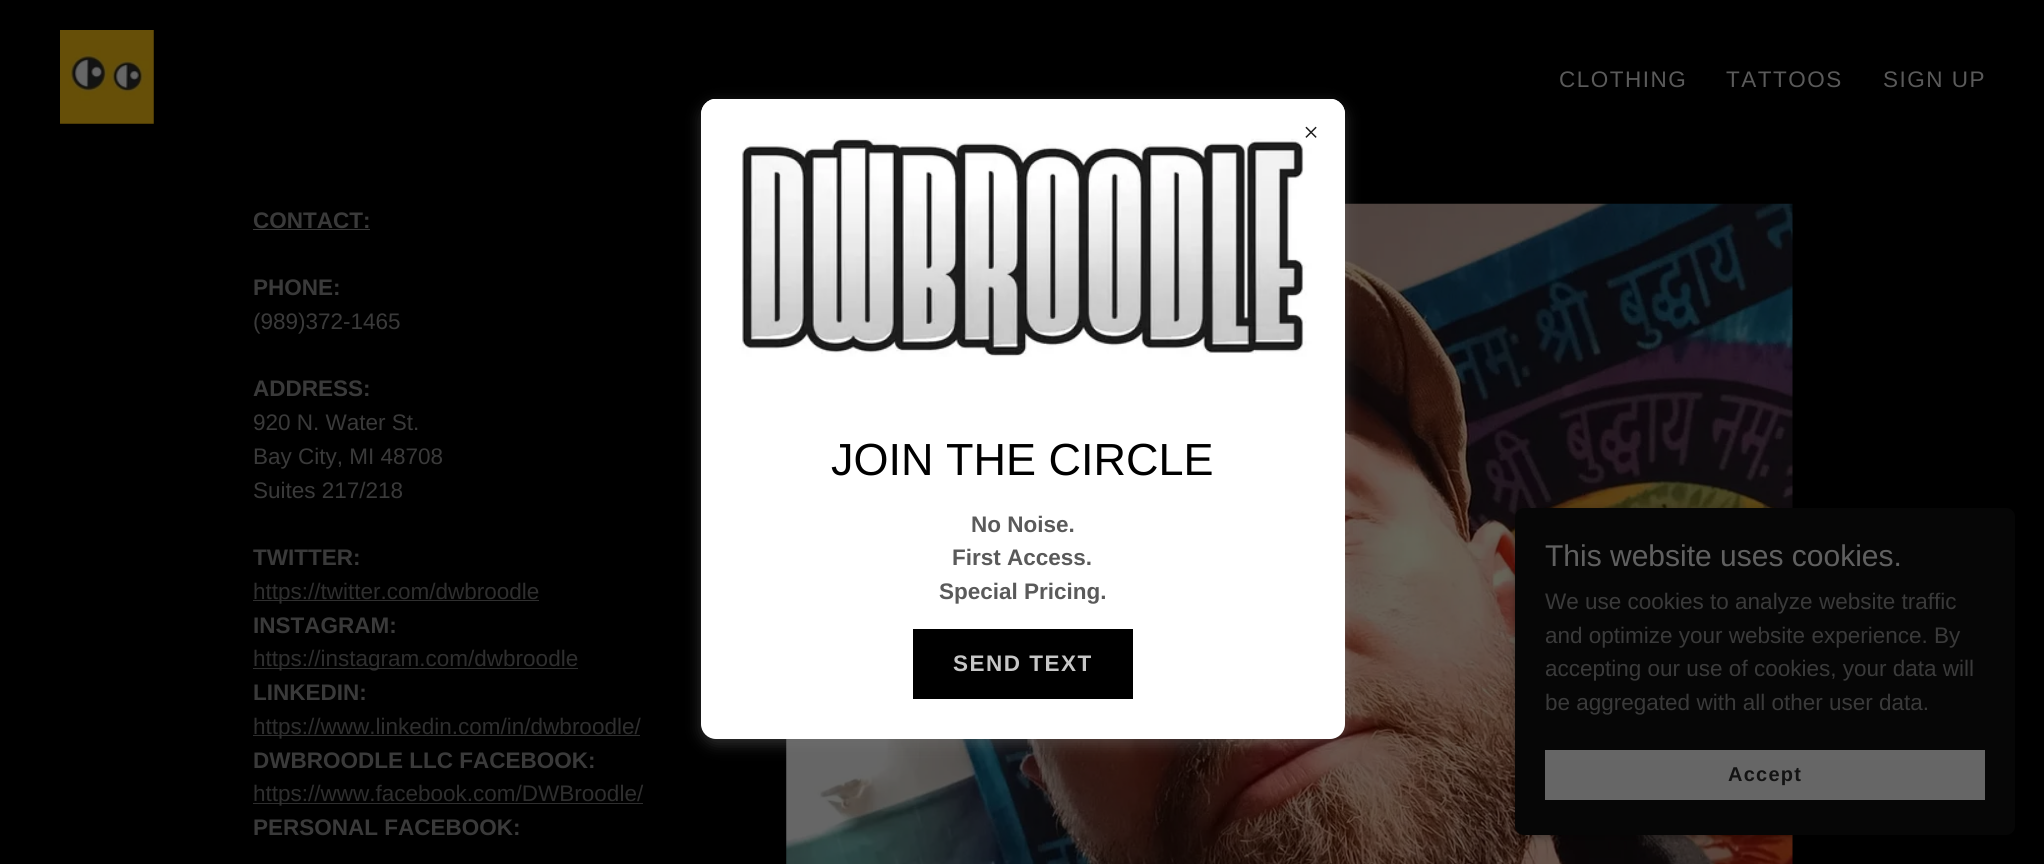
#include <cairo.h>
#include <math.h>
#include <stddef.h>


static void spaced_text(cairo_t *cr, double x, double y, const char *s, double letter, double word) {
    cairo_move_to(cr, x, y);
    while (*s) {
        char ch[5] = {0};
        int n = 0;
        do ch[n++] = *s++; while ((*s & 0xC0) == 0x80);
        cairo_show_text(cr, ch);
        cairo_rel_move_to(cr, letter + word * (*ch == ' '), 0);
    }
}

static void round_rect(cairo_t *cr, double x, double y, double w, double h, double r) {
    cairo_new_sub_path(cr);
    cairo_arc(cr, x + w - r, y + h - r, r, 0, M_PI / 2);
    cairo_arc(cr, x + r, y + h - r, r, M_PI / 2, M_PI);
    cairo_arc(cr, x + r, y + r, r, M_PI, 1.5 * M_PI);
    cairo_arc(cr, x + w - r, y + r, r, 1.5 * M_PI, 2 * M_PI);
    cairo_close_path(cr);
}

static void shadow(cairo_t *cr, double x, double y, double w, double h, double r, double blur, double alpha) {
    cairo_push_group_with_content(cr, CAIRO_CONTENT_ALPHA);
    cairo_set_operator(cr, CAIRO_OPERATOR_SOURCE);
    for (int i = 15; i >= -15 && fmin(w, h) + blur * i / 3 > 0; i -= 2) {
        double e = blur * i / 6;
        cairo_set_source_rgba(cr, 0, 0, 0, alpha * erfc((i - 1) / 8.5) / 2);
        round_rect(cr, x - e, y - e, w + 2 * e, h + 2 * e, fmax(0, fmin(r + e + blur * .6, fmin(w, h) / 2 + e)));
        cairo_fill(cr);
    }
    cairo_pattern_t *soft = cairo_pop_group(cr);
    cairo_mask(cr, soft);
    cairo_pattern_destroy(soft);
}

static void picture(cairo_t *cr, const char *path, double x, double y, double w, double h) {
    cairo_surface_t *image = cairo_image_surface_create_from_png(path);
    cairo_save(cr);
    cairo_set_source_surface(cr, image, x, y);
    cairo_rectangle(cr, x, y, w, h);
    cairo_fill(cr);
    cairo_restore(cr);
    cairo_surface_destroy(image);
}

int main(void) {
    cairo_surface_t *surface = cairo_image_surface_create(CAIRO_FORMAT_RGB24, 2044, 864);
    cairo_t *cr = cairo_create(surface);
    cairo_font_options_t *options = cairo_font_options_create();
    cairo_font_options_set_hint_metrics(options, CAIRO_HINT_METRICS_OFF);
    cairo_font_options_set_hint_style(options, CAIRO_HINT_STYLE_NONE);
    cairo_set_font_options(cr, options);
    cairo_set_miter_limit(cr, 4);
    cairo_set_source_rgb(cr, 0, 0, 0);
    cairo_paint(cr);
    picture(cr, "img1.png", 60, 30, 94, 94);
    cairo_select_font_face(cr, "Liberation Sans", CAIRO_FONT_SLANT_NORMAL, CAIRO_FONT_WEIGHT_NORMAL);
    cairo_set_font_size(cr, 22.5);
    cairo_set_source_rgb(cr, 0.353, 0.353, 0.353);
    spaced_text(cr, 1559, 87, "CLOTHING", 1.5, 0);
    spaced_text(cr, 1726, 87, "TATTOOS", 1.5, 0);
    spaced_text(cr, 1883, 87, "SIGN UP", 1.5, 0);
    cairo_select_font_face(cr, "Liberation Sans", CAIRO_FONT_SLANT_NORMAL, CAIRO_FONT_WEIGHT_BOLD);
    cairo_set_source_rgb(cr, 0.227, 0.227, 0.227);
    cairo_move_to(cr, 253, 228);
    cairo_show_text(cr, "CONTACT:");
    cairo_rectangle(cr, 253, 229, 117, 1);
    cairo_fill(cr);
    cairo_move_to(cr, 253, 295);
    cairo_show_text(cr, "PHONE:");
    cairo_select_font_face(cr, "Liberation Sans", CAIRO_FONT_SLANT_NORMAL, CAIRO_FONT_WEIGHT_NORMAL);
    cairo_move_to(cr, 253, 329);
    cairo_show_text(cr, "(989)372-1465");
    cairo_select_font_face(cr, "Liberation Sans", CAIRO_FONT_SLANT_NORMAL, CAIRO_FONT_WEIGHT_BOLD);
    cairo_move_to(cr, 253, 396);
    cairo_show_text(cr, "ADDRESS:");
    cairo_select_font_face(cr, "Liberation Sans", CAIRO_FONT_SLANT_NORMAL, CAIRO_FONT_WEIGHT_NORMAL);
    cairo_move_to(cr, 253, 430);
    cairo_show_text(cr, "920 N. Water St.");
    cairo_move_to(cr, 253, 464);
    cairo_show_text(cr, "Bay City, MI 48708");
    cairo_move_to(cr, 253, 498);
    cairo_show_text(cr, "Suites 217/218");
    cairo_select_font_face(cr, "Liberation Sans", CAIRO_FONT_SLANT_NORMAL, CAIRO_FONT_WEIGHT_BOLD);
    cairo_move_to(cr, 253, 565);
    cairo_show_text(cr, "TWITTER:");
    cairo_set_source_rgb(cr, 0.184, 0.184, 0.184);
    cairo_rectangle(cr, 253, 600, 286, 1);
    cairo_fill(cr);
    cairo_select_font_face(cr, "Liberation Sans", CAIRO_FONT_SLANT_NORMAL, CAIRO_FONT_WEIGHT_NORMAL);
    cairo_move_to(cr, 253, 599);
    cairo_show_text(cr, "https://twitter.com/dwbroodle");
    cairo_select_font_face(cr, "Liberation Sans", CAIRO_FONT_SLANT_NORMAL, CAIRO_FONT_WEIGHT_BOLD);
    cairo_set_source_rgb(cr, 0.227, 0.227, 0.227);
    cairo_move_to(cr, 253, 633);
    cairo_show_text(cr, "INSTAGRAM:");
    cairo_set_source_rgb(cr, 0.184, 0.184, 0.184);
    cairo_rectangle(cr, 253, 668, 325, 1);
    cairo_fill(cr);
    cairo_select_font_face(cr, "Liberation Sans", CAIRO_FONT_SLANT_NORMAL, CAIRO_FONT_WEIGHT_NORMAL);
    cairo_move_to(cr, 253, 666);
    cairo_show_text(cr, "https://instagram.com/dwbroodle");
    cairo_select_font_face(cr, "Liberation Sans", CAIRO_FONT_SLANT_NORMAL, CAIRO_FONT_WEIGHT_BOLD);
    cairo_set_source_rgb(cr, 0.227, 0.227, 0.227);
    cairo_move_to(cr, 253, 700);
    cairo_show_text(cr, "LINKEDIN:");
    cairo_set_source_rgb(cr, 0.184, 0.184, 0.184);
    cairo_rectangle(cr, 253, 735, 387, 1);
    cairo_fill(cr);
    cairo_select_font_face(cr, "Liberation Sans", CAIRO_FONT_SLANT_NORMAL, CAIRO_FONT_WEIGHT_NORMAL);
    cairo_move_to(cr, 253, 734);
    cairo_show_text(cr, "https://www.linkedin.com/in/dwbroodle/");
    cairo_select_font_face(cr, "Liberation Sans", CAIRO_FONT_SLANT_NORMAL, CAIRO_FONT_WEIGHT_BOLD);
    cairo_set_source_rgb(cr, 0.227, 0.227, 0.227);
    cairo_move_to(cr, 253, 768);
    cairo_show_text(cr, "DWBROODLE LLC FACEBOOK:");
    cairo_set_source_rgb(cr, 0.184, 0.184, 0.184);
    cairo_rectangle(cr, 253, 803, 390, 1);
    cairo_fill(cr);
    cairo_select_font_face(cr, "Liberation Sans", CAIRO_FONT_SLANT_NORMAL, CAIRO_FONT_WEIGHT_NORMAL);
    cairo_move_to(cr, 253, 801);
    cairo_show_text(cr, "https://www.facebook.com/DWBroodle/");
    cairo_select_font_face(cr, "Liberation Sans", CAIRO_FONT_SLANT_NORMAL, CAIRO_FONT_WEIGHT_BOLD);
    cairo_set_source_rgb(cr, 0.227, 0.227, 0.227);
    cairo_move_to(cr, 253, 835);
    cairo_show_text(cr, "PERSONAL FACEBOOK:");
    picture(cr, "img2.png", 786, 203, 1007, 661);
    cairo_set_source_rgb(cr, 0.459, 0.459, 0.459);
    shadow(cr, 701, 104, 644, 640, 15, 7.5, 0.4);
    cairo_set_source_rgb(cr, 1, 1, 1);
    round_rect(cr, 701, 99, 644, 640, 15);
    cairo_fill(cr);
    picture(cr, "img4.png", 701, 99, 644, 258);
    cairo_arc(cr, 1311.5, 132.5, 13.5, 0, 2 * M_PI);
    cairo_fill(cr);
    picture(cr, "img3.png", 1305, 126, 12, 12);
    cairo_select_font_face(cr, "Liberation Sans", CAIRO_FONT_SLANT_NORMAL, CAIRO_FONT_WEIGHT_NORMAL);
    cairo_set_font_size(cr, 45);
    cairo_set_source_rgb(cr, 0, 0, 0);
    cairo_move_to(cr, 831, 475);
    cairo_show_text(cr, "JOIN THE CIRCLE");
    cairo_select_font_face(cr, "Liberation Sans", CAIRO_FONT_SLANT_NORMAL, CAIRO_FONT_WEIGHT_BOLD);
    cairo_set_font_size(cr, 22.5);
    cairo_set_source_rgb(cr, 0.353, 0.353, 0.353);
    cairo_move_to(cr, 971, 532);
    cairo_show_text(cr, "No Noise.");
    cairo_move_to(cr, 952, 565);
    cairo_show_text(cr, "First Access.");
    cairo_move_to(cr, 939, 599);
    cairo_show_text(cr, "Special Pricing.");
    cairo_set_source_rgb(cr, 0, 0, 0);
    cairo_rectangle(cr, 913, 629, 220, 70);
    cairo_fill(cr);
    cairo_set_source_rgb(cr, 0.776, 0.776, 0.776);
    spaced_text(cr, 953, 671, "SEND TEXT", 1.5, 0);
    cairo_set_source_rgb(cr, 0, 0, 0);
    shadow(cr, 1515, 510, 500, 328, 9, 4, 0.3);
    cairo_set_source_rgb(cr, 0.027, 0.027, 0.027);
    round_rect(cr, 1515, 508, 500, 327, 9);
    cairo_fill(cr);
    cairo_select_font_face(cr, "Liberation Sans", CAIRO_FONT_SLANT_NORMAL, CAIRO_FONT_WEIGHT_NORMAL);
    cairo_set_font_size(cr, 30);
    cairo_set_source_rgb(cr, 0.376, 0.376, 0.376);
    cairo_move_to(cr, 1545, 566);
    cairo_show_text(cr, "This website uses cookies.");
    cairo_set_font_size(cr, 22.5);
    cairo_set_source_rgb(cr, 0.227, 0.227, 0.227);
    cairo_move_to(cr, 1545, 609);
    cairo_show_text(cr, "We use cookies to analyze website traffic");
    cairo_move_to(cr, 1545, 643);
    cairo_show_text(cr, "and optimize your website experience. By");
    cairo_move_to(cr, 1545, 676);
    cairo_show_text(cr, "accepting our use of cookies, your data will");
    cairo_move_to(cr, 1545, 710);
    cairo_show_text(cr, "be aggregated with all other user data.");
    cairo_set_source_rgb(cr, 0.4, 0.4, 0.4);
    cairo_rectangle(cr, 1545, 750, 440, 50);
    cairo_fill(cr);
    cairo_select_font_face(cr, "Liberation Sans", CAIRO_FONT_SLANT_NORMAL, CAIRO_FONT_WEIGHT_BOLD);
    cairo_set_font_size(cr, 20);
    cairo_set_source_rgb(cr, 0.075, 0.075, 0.075);
    spaced_text(cr, 1728, 781, "Accept", 1.25, 0);
    cairo_surface_write_to_png(surface, "page.png");
    cairo_font_options_destroy(options);
    cairo_destroy(cr);
    cairo_surface_destroy(surface);
    return 0;
}
